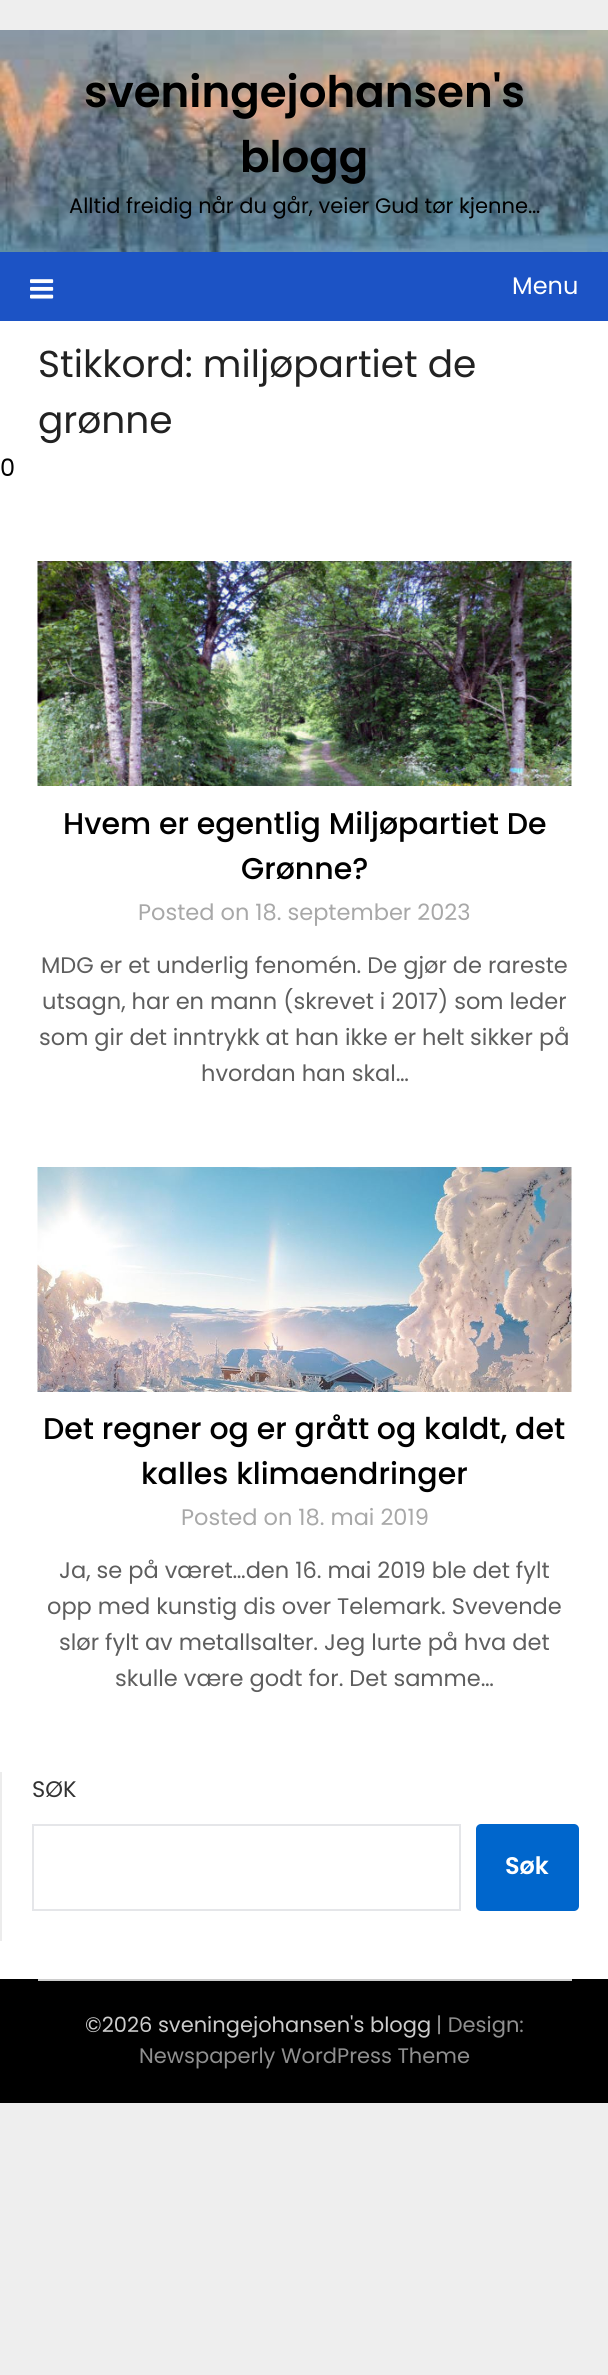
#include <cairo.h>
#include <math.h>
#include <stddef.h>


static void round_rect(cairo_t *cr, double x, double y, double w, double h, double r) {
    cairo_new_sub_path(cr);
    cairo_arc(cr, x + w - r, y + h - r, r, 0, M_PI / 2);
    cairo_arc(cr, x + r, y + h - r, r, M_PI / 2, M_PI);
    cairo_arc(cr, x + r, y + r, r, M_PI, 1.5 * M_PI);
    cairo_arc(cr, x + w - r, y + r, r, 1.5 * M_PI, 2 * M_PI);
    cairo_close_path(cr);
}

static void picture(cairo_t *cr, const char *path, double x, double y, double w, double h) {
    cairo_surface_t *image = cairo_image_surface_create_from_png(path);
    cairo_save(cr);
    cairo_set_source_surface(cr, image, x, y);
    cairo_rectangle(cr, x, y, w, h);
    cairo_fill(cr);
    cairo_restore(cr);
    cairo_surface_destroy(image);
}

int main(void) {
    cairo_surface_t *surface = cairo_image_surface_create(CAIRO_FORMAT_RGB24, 608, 2375);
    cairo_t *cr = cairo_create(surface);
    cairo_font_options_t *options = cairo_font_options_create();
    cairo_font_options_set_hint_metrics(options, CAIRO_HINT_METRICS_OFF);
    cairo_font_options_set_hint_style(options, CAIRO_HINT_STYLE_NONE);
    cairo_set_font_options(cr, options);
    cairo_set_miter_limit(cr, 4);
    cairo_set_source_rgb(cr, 0.933, 0.933, 0.933);
    cairo_paint(cr);
    picture(cr, "img1.png", 0, 30, 608, 222);
    cairo_select_font_face(cr, "Poppins SemiBold", CAIRO_FONT_SLANT_NORMAL, CAIRO_FONT_WEIGHT_NORMAL);
    cairo_set_font_size(cr, 43.5);
    cairo_set_source_rgb(cr, 0, 0, 0);
    cairo_move_to(cr, 84, 107);
    cairo_show_text(cr, "sveningejohansen's");
    cairo_move_to(cr, 240, 172);
    cairo_show_text(cr, "blogg");
    cairo_select_font_face(cr, "Poppins", CAIRO_FONT_SLANT_NORMAL, CAIRO_FONT_WEIGHT_NORMAL);
    cairo_set_font_size(cr, 21);
    cairo_move_to(cr, 69, 213);
    cairo_show_text(cr, "Alltid freidig når du går, veier Gud tør kjenne…");
    cairo_set_source_rgb(cr, 0.11, 0.325, 0.773);
    cairo_rectangle(cr, 0, 252, 608, 69);
    cairo_fill(cr);
    picture(cr, "img2.png", 30, 279, 24, 20);
    cairo_set_font_size(cr, 24);
    cairo_set_source_rgb(cr, 1, 1, 1);
    cairo_move_to(cr, 512, 294);
    cairo_show_text(cr, "Menu");
    cairo_rectangle(cr, 0, 321, 608, 1658);
    cairo_fill(cr);
    cairo_set_font_size(cr, 37.5);
    cairo_set_source_rgb(cr, 0.133, 0.133, 0.133);
    cairo_move_to(cr, 38, 377);
    cairo_show_text(cr, "Stikkord: miljøpartiet de");
    cairo_move_to(cr, 38, 433);
    cairo_show_text(cr, "grønne");
    cairo_set_font_size(cr, 24);
    cairo_set_source_rgb(cr, 0, 0, 0);
    cairo_move_to(cr, 0, 476);
    cairo_show_text(cr, "0");
    picture(cr, "img3.png", 37, 561, 535, 225);
    cairo_select_font_face(cr, "Poppins Medium", CAIRO_FONT_SLANT_NORMAL, CAIRO_FONT_WEIGHT_NORMAL);
    cairo_set_font_size(cr, 30);
    cairo_move_to(cr, 63, 834);
    cairo_show_text(cr, "Hvem er egentlig Miljøpartiet De");
    cairo_move_to(cr, 241, 879);
    cairo_show_text(cr, "Grønne?");
    cairo_select_font_face(cr, "Poppins", CAIRO_FONT_SLANT_NORMAL, CAIRO_FONT_WEIGHT_NORMAL);
    cairo_set_font_size(cr, 22.5);
    cairo_set_source_rgb(cr, 0.659, 0.659, 0.659);
    cairo_move_to(cr, 138, 920);
    cairo_show_text(cr, "Posted on 18. september 2023");
    cairo_set_source_rgb(cr, 0.369, 0.369, 0.369);
    cairo_move_to(cr, 41, 973);
    cairo_show_text(cr, "MDG er et underlig fenomén. De gjør de rareste");
    cairo_move_to(cr, 42, 1009);
    cairo_show_text(cr, "utsagn, har en mann (skrevet i 2017) som leder");
    cairo_move_to(cr, 39, 1045);
    cairo_show_text(cr, "som gir det inntrykk at han ikke er helt sikker på");
    cairo_move_to(cr, 201, 1081);
    cairo_show_text(cr, "hvordan han skal…");
    picture(cr, "img4.png", 37, 1167, 535, 225);
    cairo_select_font_face(cr, "Poppins Medium", CAIRO_FONT_SLANT_NORMAL, CAIRO_FONT_WEIGHT_NORMAL);
    cairo_set_font_size(cr, 30);
    cairo_set_source_rgb(cr, 0, 0, 0);
    cairo_move_to(cr, 43, 1439);
    cairo_show_text(cr, "Det regner og er grått og kaldt, det");
    cairo_move_to(cr, 141, 1484);
    cairo_show_text(cr, "kalles klimaendringer");
    cairo_select_font_face(cr, "Poppins", CAIRO_FONT_SLANT_NORMAL, CAIRO_FONT_WEIGHT_NORMAL);
    cairo_set_font_size(cr, 22.5);
    cairo_set_source_rgb(cr, 0.659, 0.659, 0.659);
    cairo_move_to(cr, 181, 1525);
    cairo_show_text(cr, "Posted on 18. mai 2019");
    cairo_set_source_rgb(cr, 0.369, 0.369, 0.369);
    cairo_move_to(cr, 59, 1578);
    cairo_show_text(cr, "Ja, se på været…den 16. mai 2019 ble det fylt");
    cairo_move_to(cr, 47, 1614);
    cairo_show_text(cr, "opp med kunstig dis over Telemark. Svevende");
    cairo_move_to(cr, 59, 1650);
    cairo_show_text(cr, "slør fylt av metallsalter. Jeg lurte på hva det");
    cairo_move_to(cr, 115, 1686);
    cairo_show_text(cr, "skulle være godt for. Det samme…");
    cairo_set_source_rgb(cr, 0.925, 0.925, 0.925);
    cairo_rectangle(cr, 0, 1772, 2, 169);
    cairo_fill(cr);
    cairo_set_source_rgb(cr, 0.2, 0.2, 0.2);
    cairo_move_to(cr, 32, 1797);
    cairo_show_text(cr, "SØK");
    cairo_rectangle(cr, 33, 1825, 427, 85);
    cairo_set_source_rgb(cr, 0.898, 0.902, 0.914);
    cairo_stroke(cr);
    cairo_set_source_rgb(cr, 0, 0.4, 0.8);
    round_rect(cr, 476, 1824, 103, 87, 5);
    cairo_fill(cr);
    cairo_select_font_face(cr, "Poppins SemiBold", CAIRO_FONT_SLANT_NORMAL, CAIRO_FONT_WEIGHT_NORMAL);
    cairo_set_font_size(cr, 24);
    cairo_set_source_rgb(cr, 1, 1, 1);
    cairo_move_to(cr, 505, 1874);
    cairo_show_text(cr, "Søk");
    cairo_set_source_rgb(cr, 0, 0, 0);
    cairo_rectangle(cr, 0, 1979, 608, 124);
    cairo_fill(cr);
    cairo_set_source_rgb(cr, 0.8, 0.8, 0.8);
    cairo_rectangle(cr, 38, 1979, 534, 2);
    cairo_fill(cr);
    cairo_select_font_face(cr, "Poppins", CAIRO_FONT_SLANT_NORMAL, CAIRO_FONT_WEIGHT_NORMAL);
    cairo_set_font_size(cr, 21);
    cairo_move_to(cr, 85, 2032);
    cairo_show_text(cr, "©2026 sveningejohansen's blogg");
    cairo_set_source_rgb(cr, 0.561, 0.561, 0.561);
    cairo_move_to(cr, 436, 2032);
    cairo_show_text(cr, "| Design:");
    cairo_move_to(cr, 139, 2063);
    cairo_show_text(cr, "Newspaperly WordPress Theme");
    cairo_surface_write_to_png(surface, "page.png");
    cairo_font_options_destroy(options);
    cairo_destroy(cr);
    cairo_surface_destroy(surface);
    return 0;
}
